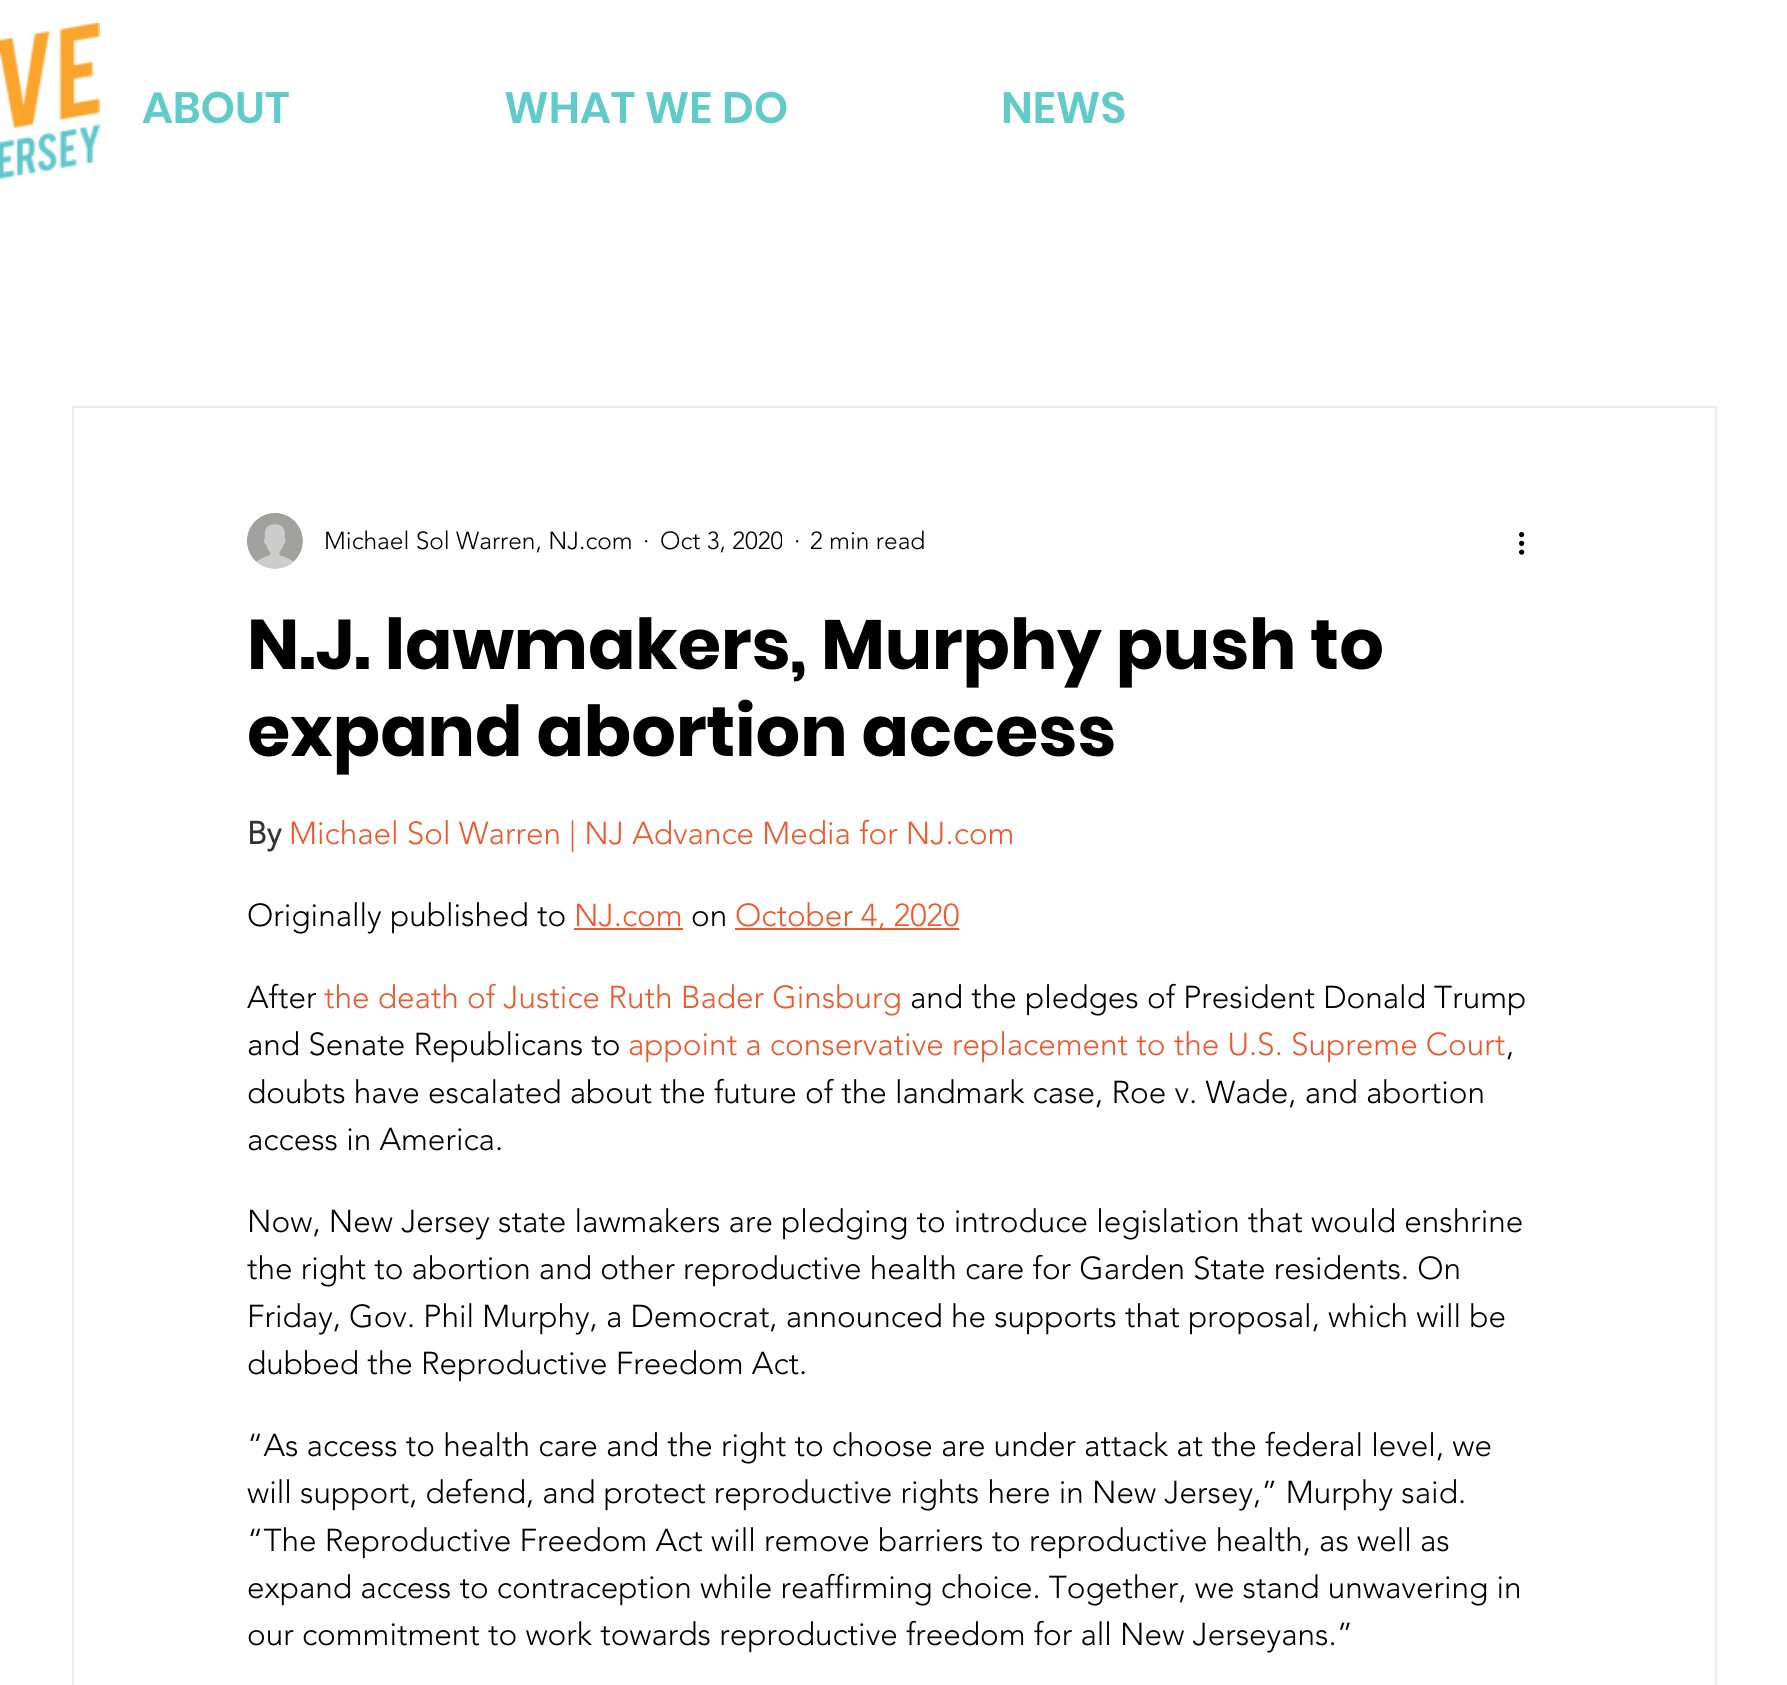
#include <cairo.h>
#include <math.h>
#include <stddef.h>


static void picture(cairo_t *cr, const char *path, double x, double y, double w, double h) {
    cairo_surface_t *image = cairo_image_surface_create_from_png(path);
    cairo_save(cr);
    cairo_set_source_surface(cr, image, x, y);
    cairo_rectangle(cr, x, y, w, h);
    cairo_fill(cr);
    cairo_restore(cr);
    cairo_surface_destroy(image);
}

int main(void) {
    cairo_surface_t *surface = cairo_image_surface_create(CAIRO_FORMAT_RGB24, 1787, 1685);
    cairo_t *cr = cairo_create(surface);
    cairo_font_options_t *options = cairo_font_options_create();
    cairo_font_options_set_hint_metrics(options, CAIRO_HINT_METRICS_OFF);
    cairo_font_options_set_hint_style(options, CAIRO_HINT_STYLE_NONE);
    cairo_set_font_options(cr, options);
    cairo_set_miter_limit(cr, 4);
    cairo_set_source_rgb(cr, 1, 1, 1);
    cairo_paint(cr);
    picture(cr, "img1.png", 0, 23, 100, 156);
    cairo_select_font_face(cr, "Poppins SemiBold", CAIRO_FONT_SLANT_NORMAL, CAIRO_FONT_WEIGHT_NORMAL);
    cairo_set_font_size(cr, 43.75);
    cairo_set_source_rgb(cr, 0.38, 0.796, 0.784);
    cairo_move_to(cr, 142, 123);
    cairo_show_text(cr, "ABOUT");
    cairo_move_to(cr, 504, 123);
    cairo_show_text(cr, "WHAT WE DO");
    cairo_move_to(cr, 1001, 123);
    cairo_show_text(cr, "NEWS");
    cairo_rectangle(cr, 73, 407, 1643, 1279);
    cairo_set_source_rgb(cr, 0.933, 0.925, 0.925);
    cairo_stroke(cr);
    picture(cr, "img2.png", 247, 513, 56, 56);
    cairo_select_font_face(cr, "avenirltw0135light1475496 Light", CAIRO_FONT_SLANT_NORMAL, CAIRO_FONT_WEIGHT_NORMAL);
    cairo_set_font_size(cr, 24.5);
    cairo_set_source_rgb(cr, 0, 0, 0);
    cairo_move_to(cr, 324, 549);
    cairo_show_text(cr, "Michael Sol Warren, NJ.com");
    cairo_move_to(cr, 643, 549);
    cairo_show_text(cr, "·");
    cairo_save(cr);
    cairo_rectangle(cr, 632, 523, 150, 37);
    cairo_clip(cr);
    cairo_move_to(cr, 660, 549);
    cairo_show_text(cr, "Oct 3, 2020");
    cairo_restore(cr);
    cairo_move_to(cr, 794, 549);
    cairo_show_text(cr, "·");
    cairo_move_to(cr, 810, 549);
    cairo_show_text(cr, "2 min read");
    picture(cr, "img3.png", 1519, 532, 6, 23);
    cairo_select_font_face(cr, "Poppins", CAIRO_FONT_SLANT_NORMAL, CAIRO_FONT_WEIGHT_BOLD);
    cairo_set_font_size(cr, 70);
    cairo_move_to(cr, 247, 669);
    cairo_show_text(cr, "N.J. lawmakers, Murphy push to");
    cairo_move_to(cr, 247, 756);
    cairo_show_text(cr, "expand abortion access");
    cairo_select_font_face(cr, "avenirltw0135light1475496", CAIRO_FONT_SLANT_NORMAL, CAIRO_FONT_WEIGHT_BOLD);
    cairo_set_font_size(cr, 31.5);
    cairo_set_source_rgb(cr, 0.2, 0.2, 0.2);
    cairo_move_to(cr, 247, 844);
    cairo_show_text(cr, "By");
    cairo_select_font_face(cr, "avenirltw0135light1475496 Light", CAIRO_FONT_SLANT_NORMAL, CAIRO_FONT_WEIGHT_NORMAL);
    cairo_set_source_rgb(cr, 0.945, 0.337, 0.165);
    cairo_move_to(cr, 289, 844);
    cairo_show_text(cr, "Michael Sol Warren | NJ Advance Media for NJ.com");
    cairo_set_source_rgb(cr, 0, 0, 0);
    cairo_move_to(cr, 247, 926);
    cairo_show_text(cr, "Originally published to");
    cairo_set_source_rgb(cr, 0.945, 0.337, 0.165);
    cairo_move_to(cr, 574, 926);
    cairo_show_text(cr, "NJ.com");
    cairo_rectangle(cr, 574, 928, 109, 2);
    cairo_fill(cr);
    cairo_set_source_rgb(cr, 0, 0, 0);
    cairo_move_to(cr, 691, 926);
    cairo_show_text(cr, "on");
    cairo_set_source_rgb(cr, 0.945, 0.337, 0.165);
    cairo_rectangle(cr, 735, 928, 224, 2);
    cairo_fill(cr);
    cairo_move_to(cr, 735, 926);
    cairo_show_text(cr, "October 4, 2020");
    cairo_set_source_rgb(cr, 0, 0, 0);
    cairo_move_to(cr, 247, 1008);
    cairo_show_text(cr, "After");
    cairo_set_source_rgb(cr, 0.945, 0.337, 0.165);
    cairo_move_to(cr, 324, 1008);
    cairo_show_text(cr, "the death of Justice Ruth Bader Ginsburg");
    cairo_set_source_rgb(cr, 0, 0, 0);
    cairo_move_to(cr, 910, 1008);
    cairo_show_text(cr, "and the pledges of President Donald Trump");
    cairo_move_to(cr, 247, 1055);
    cairo_show_text(cr, "and Senate Republicans to");
    cairo_set_source_rgb(cr, 0.945, 0.337, 0.165);
    cairo_move_to(cr, 628, 1055);
    cairo_show_text(cr, "appoint a conservative replacement to the U.S. Supreme Court");
    cairo_set_source_rgb(cr, 0, 0, 0);
    cairo_move_to(cr, 1506, 1055);
    cairo_show_text(cr, ",");
    cairo_move_to(cr, 247, 1103);
    cairo_show_text(cr, "doubts have escalated about the future of the landmark case, Roe v. Wade, and abortion");
    cairo_move_to(cr, 247, 1150);
    cairo_show_text(cr, "access in America.");
    cairo_move_to(cr, 247, 1232);
    cairo_show_text(cr, "Now, New Jersey state lawmakers are pledging to introduce legislation that would enshrine");
    cairo_move_to(cr, 247, 1279);
    cairo_show_text(cr, "the right to abortion and other reproductive health care for Garden State residents. On");
    cairo_move_to(cr, 247, 1327);
    cairo_show_text(cr, "Friday, Gov. Phil Murphy, a Democrat, announced he supports that proposal, which will be");
    cairo_move_to(cr, 247, 1374);
    cairo_show_text(cr, "dubbed the Reproductive Freedom Act.");
    cairo_move_to(cr, 247, 1456);
    cairo_show_text(cr, "“As access to health care and the right to choose are under attack at the federal level, we");
    cairo_move_to(cr, 247, 1503);
    cairo_show_text(cr, "will support, defend, and protect reproductive rights here in New Jersey,” Murphy said.");
    cairo_move_to(cr, 247, 1551);
    cairo_show_text(cr, "“The Reproductive Freedom Act will remove barriers to reproductive health, as well as");
    cairo_move_to(cr, 247, 1598);
    cairo_show_text(cr, "expand access to contraception while reaffirming choice. Together, we stand unwavering in");
    cairo_move_to(cr, 247, 1645);
    cairo_show_text(cr, "our commitment to work towards reproductive freedom for all New Jerseyans.”");
    cairo_surface_write_to_png(surface, "page.png");
    cairo_font_options_destroy(options);
    cairo_destroy(cr);
    cairo_surface_destroy(surface);
    return 0;
}
